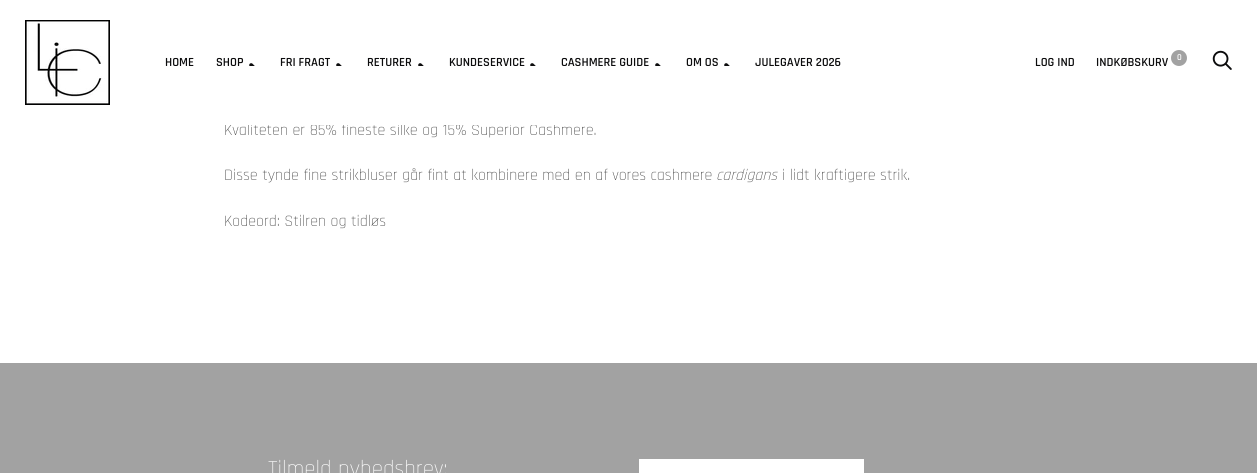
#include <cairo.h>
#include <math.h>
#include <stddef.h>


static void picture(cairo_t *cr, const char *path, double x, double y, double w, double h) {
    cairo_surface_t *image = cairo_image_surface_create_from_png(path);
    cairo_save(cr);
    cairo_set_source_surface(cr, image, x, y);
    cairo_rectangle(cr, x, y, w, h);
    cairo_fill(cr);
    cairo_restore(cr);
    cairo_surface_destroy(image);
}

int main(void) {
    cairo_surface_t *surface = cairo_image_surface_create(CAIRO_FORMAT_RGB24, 1257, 473);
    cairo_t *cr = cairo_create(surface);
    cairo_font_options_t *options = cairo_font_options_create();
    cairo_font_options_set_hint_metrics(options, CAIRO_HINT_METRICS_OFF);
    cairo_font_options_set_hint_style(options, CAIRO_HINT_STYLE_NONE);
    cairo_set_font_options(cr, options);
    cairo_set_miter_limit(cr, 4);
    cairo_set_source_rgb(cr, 1, 1, 1);
    cairo_paint(cr);
    cairo_select_font_face(cr, "Rajdhani Light", CAIRO_FONT_SLANT_NORMAL, CAIRO_FONT_WEIGHT_NORMAL);
    cairo_set_font_size(cr, 16);
    cairo_set_source_rgb(cr, 0.251, 0.251, 0.251);
    cairo_move_to(cr, 224, 135);
    cairo_show_text(cr, "Kvaliteten er 85% fineste silke og 15% Superior Cashmere.");
    cairo_set_source_rgb(cr, 1, 1, 1);
    cairo_rectangle(cr, 225, 123, 330, 2);
    cairo_fill(cr);
    picture(cr, "img1.png", 25, 20, 85, 85);
    cairo_select_font_face(cr, "Rajdhani SemiBold", CAIRO_FONT_SLANT_NORMAL, CAIRO_FONT_WEIGHT_NORMAL);
    cairo_set_font_size(cr, 12.5);
    cairo_set_source_rgb(cr, 0.047, 0.047, 0.051);
    cairo_move_to(cr, 165, 66);
    cairo_show_text(cr, "HOME");
    cairo_move_to(cr, 216, 66);
    cairo_show_text(cr, "SHOP");
    picture(cr, "img2.png", 249, 63, 6, 3);
    cairo_move_to(cr, 280, 66);
    cairo_show_text(cr, "FRI FRAGT");
    picture(cr, "img2.png", 336, 63, 6, 3);
    cairo_move_to(cr, 367, 66);
    cairo_show_text(cr, "RETURER");
    picture(cr, "img2.png", 418, 63, 6, 3);
    cairo_move_to(cr, 449, 66);
    cairo_show_text(cr, "KUNDESERVICE");
    picture(cr, "img2.png", 530, 63, 6, 3);
    cairo_move_to(cr, 561, 66);
    cairo_show_text(cr, "CASHMERE GUIDE");
    picture(cr, "img2.png", 655, 63, 6, 3);
    cairo_move_to(cr, 686, 66);
    cairo_show_text(cr, "OM OS");
    picture(cr, "img2.png", 724, 63, 6, 3);
    cairo_move_to(cr, 755, 66);
    cairo_show_text(cr, "JULEGAVER 2026");
    cairo_move_to(cr, 1035, 66);
    cairo_show_text(cr, "LOG IND");
    cairo_set_source_rgb(cr, 0.635, 0.635, 0.635);
    cairo_new_path(cr);
    cairo_arc(cr, 1179, 58, 8, 0, 2 * M_PI);
    cairo_fill(cr);
    cairo_set_font_size(cr, 9);
    cairo_set_source_rgb(cr, 1, 1, 1);
    cairo_move_to(cr, 1177, 60);
    cairo_show_text(cr, "0");
    cairo_set_font_size(cr, 12.5);
    cairo_set_source_rgb(cr, 0.047, 0.047, 0.051);
    cairo_move_to(cr, 1096, 66);
    cairo_show_text(cr, "INDKØBSKURV");
    picture(cr, "img3.png", 1212, 50, 20, 20);
    cairo_select_font_face(cr, "Rajdhani Light", CAIRO_FONT_SLANT_NORMAL, CAIRO_FONT_WEIGHT_NORMAL);
    cairo_set_font_size(cr, 16);
    cairo_set_source_rgb(cr, 0.251, 0.251, 0.251);
    cairo_move_to(cr, 224, 180);
    cairo_show_text(cr, "Disse tynde fine strikbluser går fint at kombinere med en af vores cashmere");
    cairo_select_font_face(cr, "Rajdhani Light", CAIRO_FONT_SLANT_ITALIC, CAIRO_FONT_WEIGHT_NORMAL);
    cairo_move_to(cr, 716, 180);
    cairo_show_text(cr, "cardigans");
    cairo_select_font_face(cr, "Rajdhani Light", CAIRO_FONT_SLANT_NORMAL, CAIRO_FONT_WEIGHT_NORMAL);
    cairo_move_to(cr, 782, 180);
    cairo_show_text(cr, "i lidt kraftigere strik.");
    cairo_move_to(cr, 224, 226);
    cairo_show_text(cr, "Kodeord: Stilren og tidløs");
    cairo_set_source_rgb(cr, 0.635, 0.635, 0.635);
    cairo_rectangle(cr, 0, 363, 1257, 110);
    cairo_fill(cr);
    cairo_set_font_size(cr, 23);
    cairo_set_source_rgb(cr, 1, 1, 1);
    cairo_move_to(cr, 268, 476);
    cairo_show_text(cr, "Tilmeld nyhedsbrev:");
    cairo_rectangle(cr, 639, 459, 225, 14);
    cairo_fill(cr);
    cairo_surface_write_to_png(surface, "page.png");
    cairo_font_options_destroy(options);
    cairo_destroy(cr);
    cairo_surface_destroy(surface);
    return 0;
}
